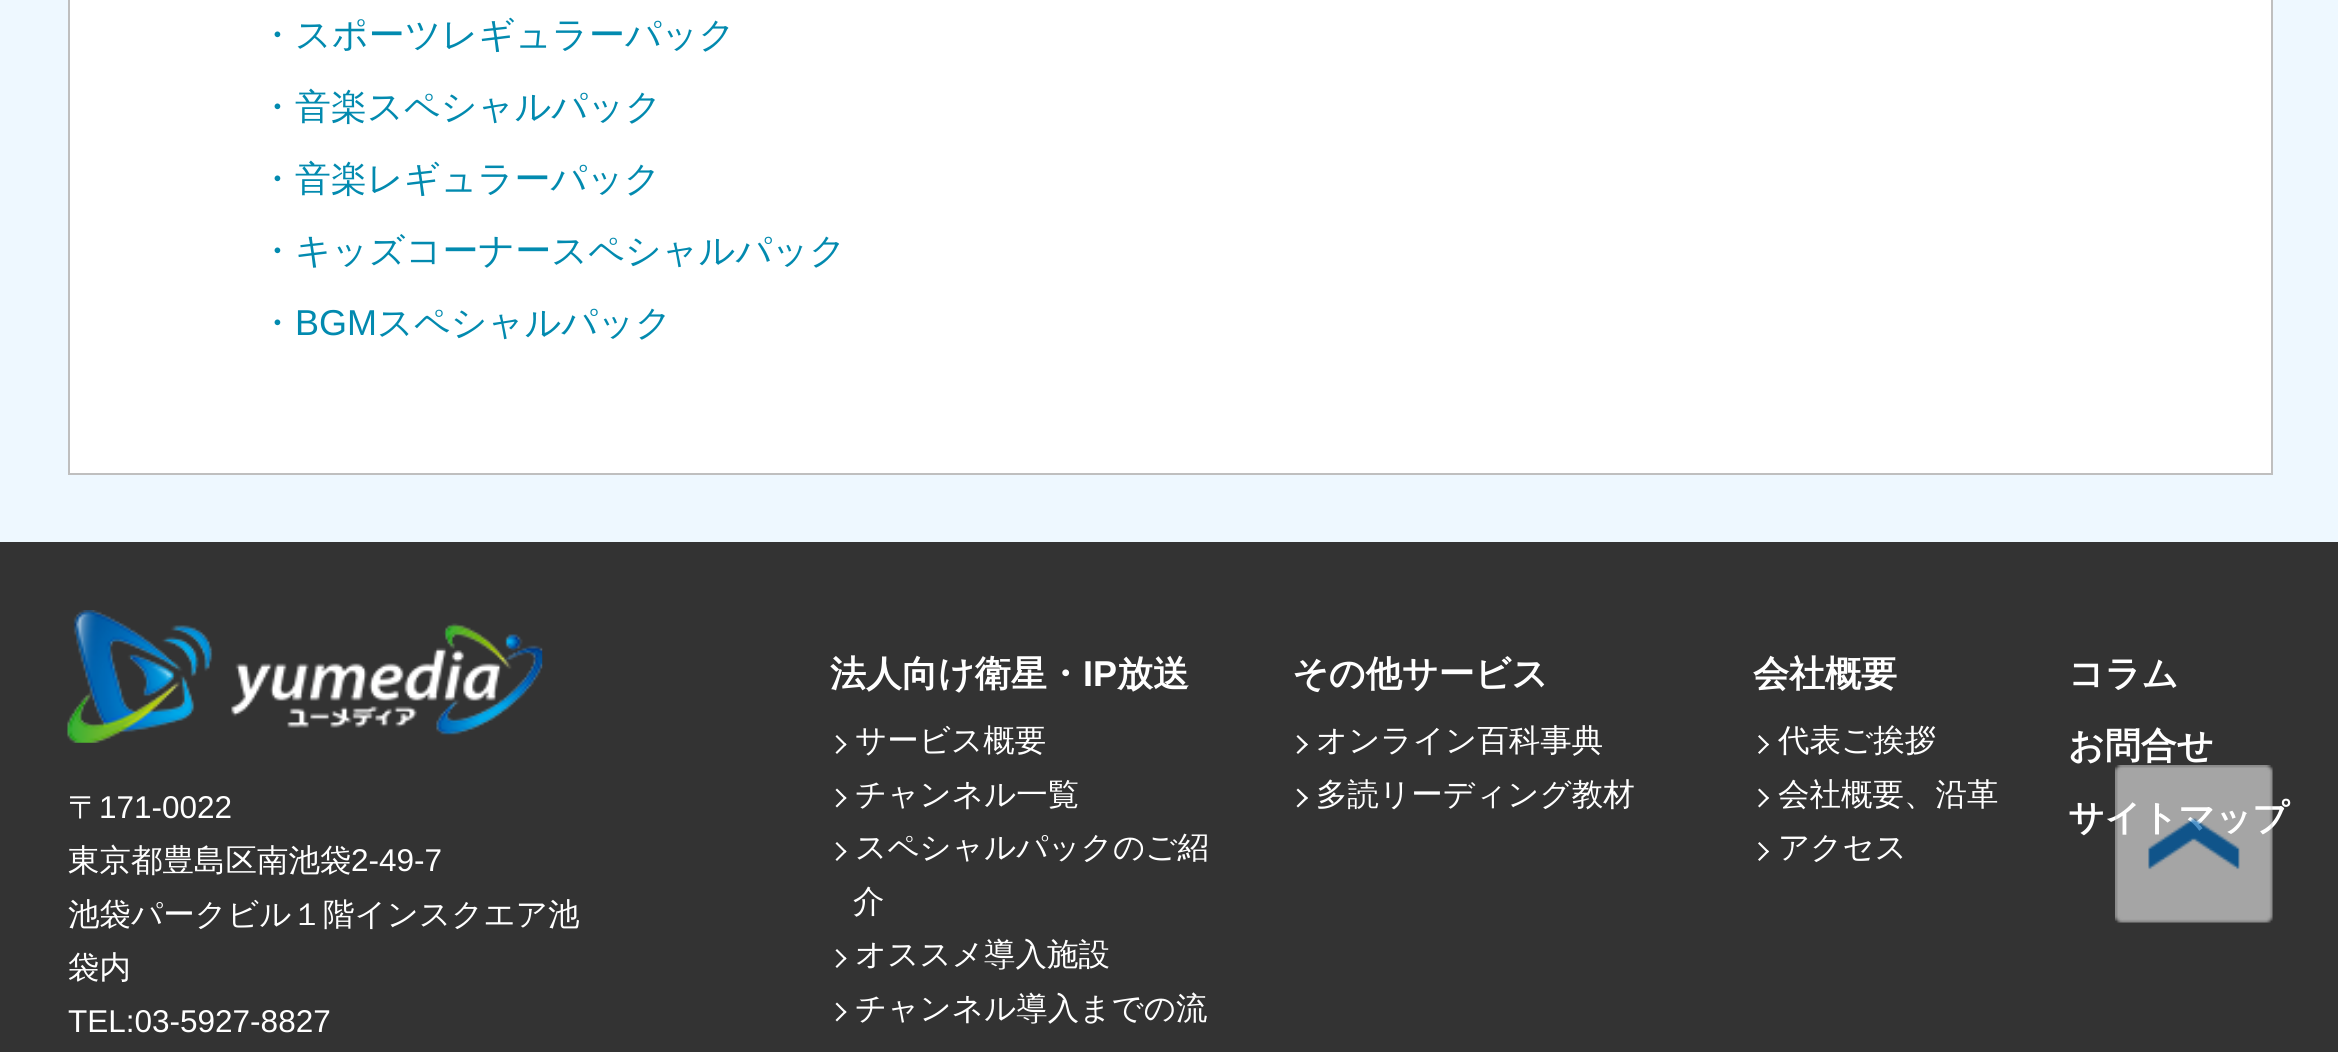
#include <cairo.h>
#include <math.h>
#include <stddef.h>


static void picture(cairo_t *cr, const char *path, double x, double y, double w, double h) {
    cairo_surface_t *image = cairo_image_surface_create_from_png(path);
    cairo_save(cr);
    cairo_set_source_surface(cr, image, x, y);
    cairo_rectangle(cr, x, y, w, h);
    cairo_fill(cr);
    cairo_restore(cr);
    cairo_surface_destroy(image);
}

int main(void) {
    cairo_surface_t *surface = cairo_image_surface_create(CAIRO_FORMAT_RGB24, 2338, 1052);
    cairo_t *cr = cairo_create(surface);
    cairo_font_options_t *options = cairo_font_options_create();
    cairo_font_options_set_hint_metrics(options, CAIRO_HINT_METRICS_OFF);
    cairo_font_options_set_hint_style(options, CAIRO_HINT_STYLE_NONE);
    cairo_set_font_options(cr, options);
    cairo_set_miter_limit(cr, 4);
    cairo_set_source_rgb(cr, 0.933, 0.969, 1);
    cairo_paint(cr);
    cairo_set_source_rgb(cr, 1, 1, 1);
    cairo_rectangle(cr, 69, -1, 2203, 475);
    cairo_fill_preserve(cr);
    cairo_set_source_rgb(cr, 0.749, 0.749, 0.749);
    cairo_stroke(cr);
    cairo_select_font_face(cr, "WenQuanYi Zen Hei Medium", CAIRO_FONT_SLANT_NORMAL, CAIRO_FONT_WEIGHT_NORMAL);
    cairo_set_font_size(cr, 36);
    cairo_set_source_rgb(cr, 0.008, 0.541, 0.686);
    cairo_move_to(cr, 259, 47);
    cairo_show_text(cr, "・スポーツレギュラーパック");
    cairo_move_to(cr, 259, 119);
    cairo_show_text(cr, "・音楽スペシャルパック");
    cairo_move_to(cr, 259, 191);
    cairo_show_text(cr, "・音楽レギュラーパック");
    cairo_move_to(cr, 259, 263);
    cairo_show_text(cr, "・キッズコーナースペシャルパック");
    cairo_move_to(cr, 259, 335);
    cairo_show_text(cr, "・");
    cairo_select_font_face(cr, "Liberation Sans", CAIRO_FONT_SLANT_NORMAL, CAIRO_FONT_WEIGHT_NORMAL);
    cairo_move_to(cr, 295, 335);
    cairo_show_text(cr, "BGM");
    cairo_select_font_face(cr, "WenQuanYi Zen Hei Medium", CAIRO_FONT_SLANT_NORMAL, CAIRO_FONT_WEIGHT_NORMAL);
    cairo_move_to(cr, 377, 335);
    cairo_show_text(cr, "スペシャルパック");
    cairo_set_source_rgb(cr, 0.2, 0.2, 0.2);
    cairo_rectangle(cr, 0, 542, 2338, 510);
    cairo_fill(cr);
    cairo_select_font_face(cr, "WenQuanYi Zen Hei", CAIRO_FONT_SLANT_NORMAL, CAIRO_FONT_WEIGHT_BOLD);
    cairo_set_source_rgb(cr, 1, 1, 1);
    cairo_move_to(cr, 830, 686);
    cairo_show_text(cr, "法人向け衛星・");
    cairo_select_font_face(cr, "Liberation Sans", CAIRO_FONT_SLANT_NORMAL, CAIRO_FONT_WEIGHT_BOLD);
    cairo_move_to(cr, 1083, 686);
    cairo_show_text(cr, "IP");
    cairo_select_font_face(cr, "WenQuanYi Zen Hei", CAIRO_FONT_SLANT_NORMAL, CAIRO_FONT_WEIGHT_BOLD);
    cairo_move_to(cr, 1117, 686);
    cairo_show_text(cr, "放送");
    cairo_new_path(cr);
    cairo_move_to(cr, 837, 735);
    cairo_line_to(cr, 846.5, 744.5);
    cairo_line_to(cr, 845, 746);
    cairo_line_to(cr, 835.5, 736.5);
    cairo_close_path(cr);
    cairo_fill(cr);
    cairo_new_path(cr);
    cairo_move_to(cr, 845, 743);
    cairo_line_to(cr, 846.5, 744.5);
    cairo_line_to(cr, 837, 754);
    cairo_line_to(cr, 835.5, 752.5);
    cairo_close_path(cr);
    cairo_move_to(cr, 837, 788.5);
    cairo_line_to(cr, 846.5, 798);
    cairo_line_to(cr, 845, 799.5);
    cairo_line_to(cr, 835.5, 790);
    cairo_close_path(cr);
    cairo_fill(cr);
    cairo_select_font_face(cr, "WenQuanYi Zen Hei Medium", CAIRO_FONT_SLANT_NORMAL, CAIRO_FONT_WEIGHT_NORMAL);
    cairo_set_font_size(cr, 31.5);
    cairo_move_to(cr, 855, 751);
    cairo_show_text(cr, "サービス概要");
    cairo_new_path(cr);
    cairo_move_to(cr, 845, 796.5);
    cairo_line_to(cr, 846.5, 798);
    cairo_line_to(cr, 837, 807.5);
    cairo_line_to(cr, 835.5, 806);
    cairo_close_path(cr);
    cairo_move_to(cr, 837, 842);
    cairo_line_to(cr, 846.5, 851.5);
    cairo_line_to(cr, 845, 853);
    cairo_line_to(cr, 835.5, 843.5);
    cairo_close_path(cr);
    cairo_fill(cr);
    cairo_move_to(cr, 855, 805);
    cairo_show_text(cr, "チャンネル一覧");
    cairo_new_path(cr);
    cairo_move_to(cr, 845, 850);
    cairo_line_to(cr, 846.5, 851.5);
    cairo_line_to(cr, 837, 861);
    cairo_line_to(cr, 835.5, 859.5);
    cairo_close_path(cr);
    cairo_fill(cr);
    cairo_move_to(cr, 855, 858);
    cairo_show_text(cr, "スペシャルパックのご紹");
    cairo_move_to(cr, 853, 912);
    cairo_show_text(cr, "介");
    cairo_new_path(cr);
    cairo_move_to(cr, 837, 949);
    cairo_line_to(cr, 846.5, 958.5);
    cairo_line_to(cr, 845, 960);
    cairo_line_to(cr, 835.5, 950.5);
    cairo_close_path(cr);
    cairo_fill(cr);
    cairo_new_path(cr);
    cairo_move_to(cr, 845, 957);
    cairo_line_to(cr, 846.5, 958.5);
    cairo_line_to(cr, 837, 968);
    cairo_line_to(cr, 835.5, 966.5);
    cairo_close_path(cr);
    cairo_move_to(cr, 837, 1002.5);
    cairo_line_to(cr, 846.5, 1012);
    cairo_line_to(cr, 845, 1013.5);
    cairo_line_to(cr, 835.5, 1004);
    cairo_close_path(cr);
    cairo_fill(cr);
    cairo_move_to(cr, 855, 965);
    cairo_show_text(cr, "オススメ導入施設");
    cairo_new_path(cr);
    cairo_move_to(cr, 845, 1010.5);
    cairo_line_to(cr, 846.5, 1012);
    cairo_line_to(cr, 837, 1021.5);
    cairo_line_to(cr, 835.5, 1020);
    cairo_close_path(cr);
    cairo_fill(cr);
    cairo_move_to(cr, 855, 1019);
    cairo_show_text(cr, "チャンネル導入までの流");
    cairo_select_font_face(cr, "WenQuanYi Zen Hei", CAIRO_FONT_SLANT_NORMAL, CAIRO_FONT_WEIGHT_BOLD);
    cairo_set_font_size(cr, 36);
    cairo_move_to(cr, 1292, 686);
    cairo_show_text(cr, "その他サービス");
    cairo_new_path(cr);
    cairo_move_to(cr, 1298, 735);
    cairo_line_to(cr, 1308, 744.5);
    cairo_line_to(cr, 1306, 746);
    cairo_line_to(cr, 1296.5, 736.5);
    cairo_close_path(cr);
    cairo_fill(cr);
    cairo_new_path(cr);
    cairo_move_to(cr, 1306, 743);
    cairo_line_to(cr, 1308, 744.5);
    cairo_line_to(cr, 1298, 754);
    cairo_line_to(cr, 1296.5, 752.5);
    cairo_close_path(cr);
    cairo_move_to(cr, 1298, 788.5);
    cairo_line_to(cr, 1308, 798);
    cairo_line_to(cr, 1306, 799.5);
    cairo_line_to(cr, 1296.5, 790);
    cairo_close_path(cr);
    cairo_fill(cr);
    cairo_select_font_face(cr, "WenQuanYi Zen Hei Medium", CAIRO_FONT_SLANT_NORMAL, CAIRO_FONT_WEIGHT_NORMAL);
    cairo_set_font_size(cr, 31.5);
    cairo_move_to(cr, 1316, 751);
    cairo_show_text(cr, "オンライン百科事典");
    cairo_new_path(cr);
    cairo_move_to(cr, 1306, 796.5);
    cairo_line_to(cr, 1308, 798);
    cairo_line_to(cr, 1298, 807.5);
    cairo_line_to(cr, 1296.5, 806);
    cairo_close_path(cr);
    cairo_fill(cr);
    cairo_move_to(cr, 1316, 805);
    cairo_show_text(cr, "多読リーディング教材");
    cairo_select_font_face(cr, "WenQuanYi Zen Hei", CAIRO_FONT_SLANT_NORMAL, CAIRO_FONT_WEIGHT_BOLD);
    cairo_set_font_size(cr, 36);
    cairo_move_to(cr, 1753, 686);
    cairo_show_text(cr, "会社概要");
    cairo_new_path(cr);
    cairo_move_to(cr, 1759.5, 735);
    cairo_line_to(cr, 1769, 744.5);
    cairo_line_to(cr, 1767.5, 746);
    cairo_line_to(cr, 1758, 736.5);
    cairo_close_path(cr);
    cairo_fill(cr);
    cairo_new_path(cr);
    cairo_move_to(cr, 1767.5, 743);
    cairo_line_to(cr, 1769, 744.5);
    cairo_line_to(cr, 1759.5, 754);
    cairo_line_to(cr, 1758, 752.5);
    cairo_close_path(cr);
    cairo_move_to(cr, 1759.5, 788.5);
    cairo_line_to(cr, 1769, 798);
    cairo_line_to(cr, 1767.5, 799.5);
    cairo_line_to(cr, 1758, 790);
    cairo_close_path(cr);
    cairo_fill(cr);
    cairo_select_font_face(cr, "WenQuanYi Zen Hei Medium", CAIRO_FONT_SLANT_NORMAL, CAIRO_FONT_WEIGHT_NORMAL);
    cairo_set_font_size(cr, 31.5);
    cairo_move_to(cr, 1778, 751);
    cairo_show_text(cr, "代表ご挨拶");
    cairo_new_path(cr);
    cairo_move_to(cr, 1767.5, 796.5);
    cairo_line_to(cr, 1769, 798);
    cairo_line_to(cr, 1759.5, 807.5);
    cairo_line_to(cr, 1758, 806);
    cairo_close_path(cr);
    cairo_move_to(cr, 1759.5, 842);
    cairo_line_to(cr, 1769, 851.5);
    cairo_line_to(cr, 1767.5, 853);
    cairo_line_to(cr, 1758, 843.5);
    cairo_close_path(cr);
    cairo_fill(cr);
    cairo_move_to(cr, 1778, 805);
    cairo_show_text(cr, "会社概要、沿革");
    cairo_new_path(cr);
    cairo_move_to(cr, 1767.5, 850);
    cairo_line_to(cr, 1769, 851.5);
    cairo_line_to(cr, 1759.5, 861);
    cairo_line_to(cr, 1758, 859.5);
    cairo_close_path(cr);
    cairo_fill(cr);
    cairo_move_to(cr, 1778, 858);
    cairo_show_text(cr, "アクセス");
    cairo_select_font_face(cr, "WenQuanYi Zen Hei", CAIRO_FONT_SLANT_NORMAL, CAIRO_FONT_WEIGHT_BOLD);
    cairo_set_font_size(cr, 36);
    cairo_move_to(cr, 2068, 686);
    cairo_show_text(cr, "コラム");
    cairo_move_to(cr, 2068, 758);
    cairo_show_text(cr, "お問合せ");
    cairo_move_to(cr, 2068, 830);
    cairo_show_text(cr, "サイトマップ");
    picture(cr, "img1.png", 67, 610, 476, 133);
    cairo_select_font_face(cr, "WenQuanYi Zen Hei Medium", CAIRO_FONT_SLANT_NORMAL, CAIRO_FONT_WEIGHT_NORMAL);
    cairo_set_font_size(cr, 31.5);
    cairo_move_to(cr, 68, 818);
    cairo_show_text(cr, "〒");
    cairo_select_font_face(cr, "Liberation Sans", CAIRO_FONT_SLANT_NORMAL, CAIRO_FONT_WEIGHT_NORMAL);
    cairo_move_to(cr, 99, 818);
    cairo_show_text(cr, "171-0022");
    cairo_select_font_face(cr, "WenQuanYi Zen Hei Medium", CAIRO_FONT_SLANT_NORMAL, CAIRO_FONT_WEIGHT_NORMAL);
    cairo_move_to(cr, 68, 871);
    cairo_show_text(cr, "東京都豊島区南池袋");
    cairo_select_font_face(cr, "Liberation Sans", CAIRO_FONT_SLANT_NORMAL, CAIRO_FONT_WEIGHT_NORMAL);
    cairo_move_to(cr, 351, 871);
    cairo_show_text(cr, "2-49-7");
    cairo_select_font_face(cr, "WenQuanYi Zen Hei Medium", CAIRO_FONT_SLANT_NORMAL, CAIRO_FONT_WEIGHT_NORMAL);
    cairo_move_to(cr, 68, 925);
    cairo_show_text(cr, "池袋パークビル１階インスクエア池");
    cairo_move_to(cr, 68, 978);
    cairo_show_text(cr, "袋内");
    cairo_select_font_face(cr, "Liberation Sans", CAIRO_FONT_SLANT_NORMAL, CAIRO_FONT_WEIGHT_NORMAL);
    cairo_move_to(cr, 68, 1032);
    cairo_show_text(cr, "TEL:03-5927-8827");
    picture(cr, "img2.png", 2115, 765, 158, 158);
    cairo_surface_write_to_png(surface, "page.png");
    cairo_font_options_destroy(options);
    cairo_destroy(cr);
    cairo_surface_destroy(surface);
    return 0;
}
